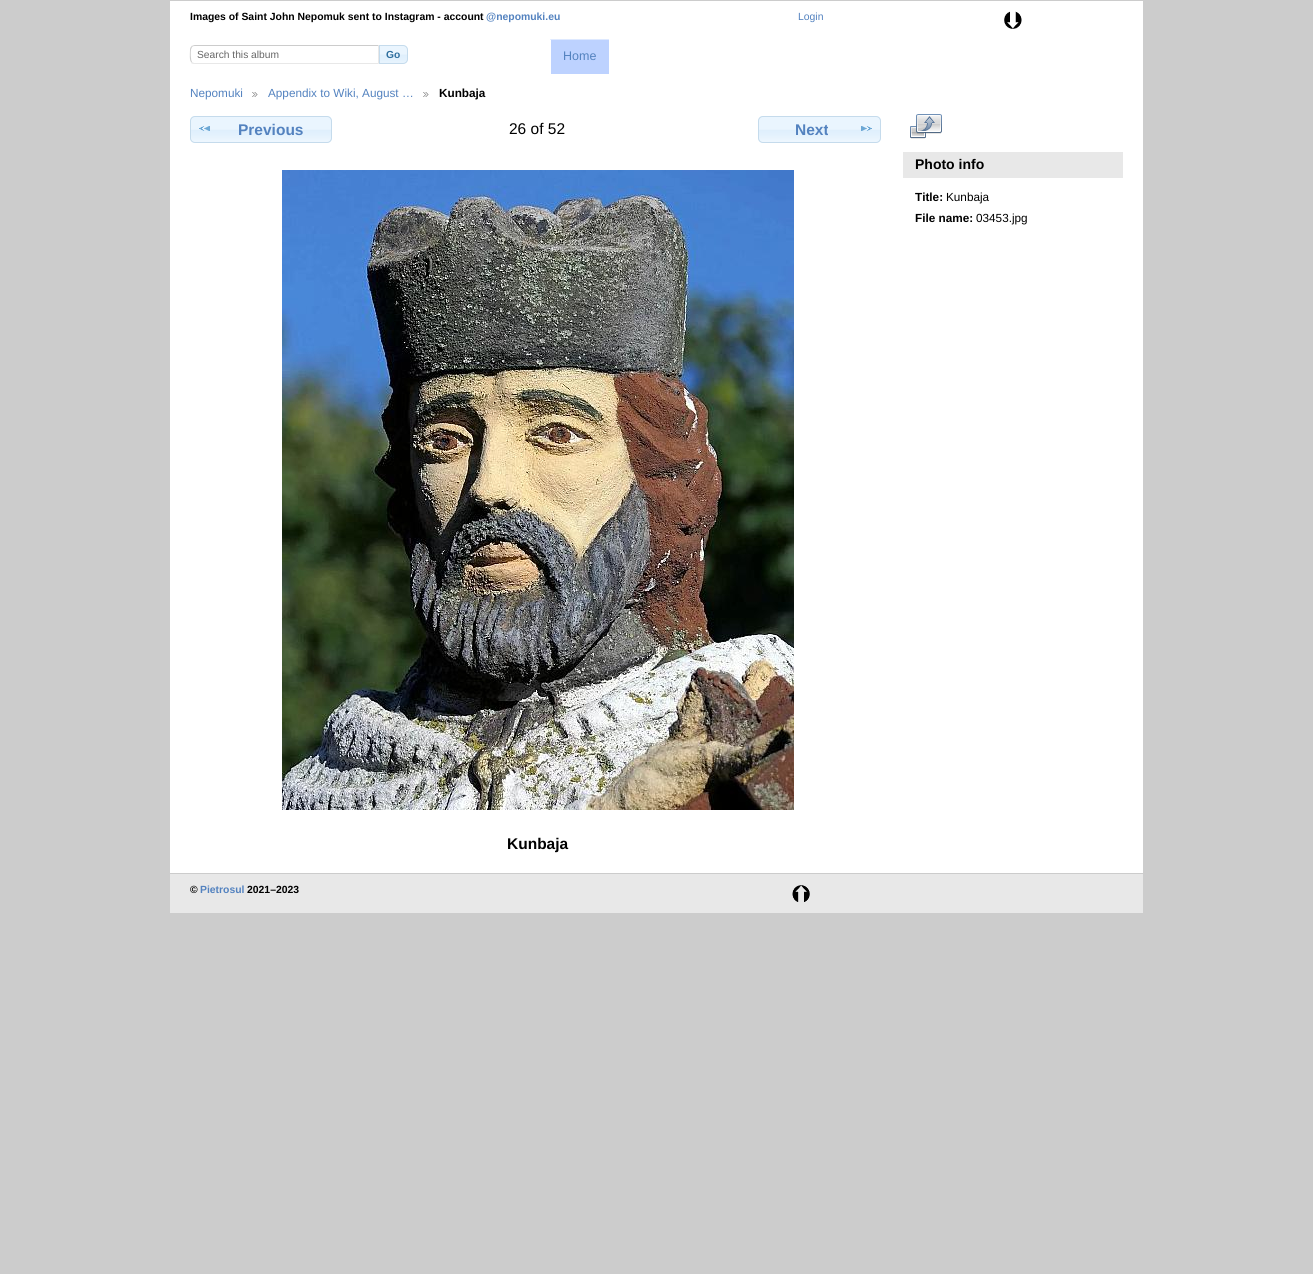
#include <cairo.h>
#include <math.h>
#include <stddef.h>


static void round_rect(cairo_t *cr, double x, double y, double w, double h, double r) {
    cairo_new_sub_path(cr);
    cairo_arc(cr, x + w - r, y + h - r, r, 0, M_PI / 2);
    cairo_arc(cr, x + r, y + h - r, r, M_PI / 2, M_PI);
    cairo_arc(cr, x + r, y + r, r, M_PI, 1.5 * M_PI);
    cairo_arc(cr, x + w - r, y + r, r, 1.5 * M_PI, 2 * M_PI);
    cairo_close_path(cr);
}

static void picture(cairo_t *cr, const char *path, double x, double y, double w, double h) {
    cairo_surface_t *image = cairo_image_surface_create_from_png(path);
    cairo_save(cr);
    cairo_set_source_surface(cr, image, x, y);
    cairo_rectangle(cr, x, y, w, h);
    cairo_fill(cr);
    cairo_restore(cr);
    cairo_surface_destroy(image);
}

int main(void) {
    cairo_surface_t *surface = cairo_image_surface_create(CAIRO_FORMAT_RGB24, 1313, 1274);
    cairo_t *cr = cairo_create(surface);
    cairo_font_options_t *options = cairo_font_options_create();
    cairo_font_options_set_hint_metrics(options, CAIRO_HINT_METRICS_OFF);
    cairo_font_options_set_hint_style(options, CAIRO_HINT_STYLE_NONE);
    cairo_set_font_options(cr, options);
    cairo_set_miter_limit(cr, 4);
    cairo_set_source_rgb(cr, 0.8, 0.8, 0.8);
    cairo_paint(cr);
    cairo_set_source_rgb(cr, 1, 1, 1);
    cairo_rectangle(cr, 170, 1, 973, 872);
    cairo_fill(cr);
    cairo_select_font_face(cr, "Liberation Sans", CAIRO_FONT_SLANT_NORMAL, CAIRO_FONT_WEIGHT_BOLD);
    cairo_set_font_size(cr, 10.4);
    cairo_set_source_rgb(cr, 0, 0, 0);
    cairo_move_to(cr, 190, 20);
    cairo_show_text(cr, "Images of Saint John Nepomuk sent to Instagram - account");
    cairo_set_source_rgb(cr, 0.325, 0.51, 0.749);
    cairo_move_to(cr, 486, 20);
    cairo_show_text(cr, "@nepomuki.eu");
    cairo_select_font_face(cr, "Liberation Sans", CAIRO_FONT_SLANT_NORMAL, CAIRO_FONT_WEIGHT_NORMAL);
    cairo_move_to(cr, 798, 20);
    cairo_show_text(cr, "Login");
    picture(cr, "img1.png", 1004, 11, 18, 18);
    cairo_set_source_rgb(cr, 0.8, 0.8, 0.8);
    cairo_new_path(cr);
    cairo_move_to(cr, 195, 45);
    cairo_curve_to(cr, 194, 45, 192, 46, 191, 46);
    cairo_line_to(cr, 192, 47);
    cairo_curve_to(cr, 193, 46, 194, 46, 195, 46);
    cairo_line_to(cr, 378, 46);
    cairo_line_to(cr, 379, 45);
    cairo_close_path(cr);
    cairo_fill(cr);
    cairo_set_source_rgb(cr, 0.91, 0.91, 0.91);
    cairo_new_path(cr);
    cairo_move_to(cr, 379, 45);
    cairo_line_to(cr, 378, 46);
    cairo_line_to(cr, 378, 63);
    cairo_line_to(cr, 379, 64);
    cairo_close_path(cr);
    cairo_fill(cr);
    cairo_new_path(cr);
    cairo_move_to(cr, 379, 64);
    cairo_line_to(cr, 378, 63);
    cairo_line_to(cr, 194, 63);
    cairo_line_to(cr, 192, 62);
    cairo_line_to(cr, 191, 63);
    cairo_curve_to(cr, 192, 64, 194, 64, 195, 64);
    cairo_close_path(cr);
    cairo_fill(cr);
    cairo_set_source_rgb(cr, 0.8, 0.8, 0.8);
    cairo_new_path(cr);
    cairo_move_to(cr, 190, 50);
    cairo_curve_to(cr, 190, 53, 189, 60.5, 191.5, 62.5);
    cairo_line_to(cr, 192, 62);
    cairo_curve_to(cr, 190.5, 59.5, 190.5, 52, 191, 49.5);
    cairo_line_to(cr, 192, 47);
    cairo_line_to(cr, 191.5, 46.5);
    cairo_curve_to(cr, 190.5, 47, 190, 48.5, 190, 50);
    cairo_close_path(cr);
    cairo_fill(cr);
    cairo_set_font_size(cr, 10.25);
    cairo_set_source_rgb(cr, 0.4, 0.4, 0.4);
    cairo_move_to(cr, 197, 58);
    cairo_show_text(cr, "Search this album");
    picture(cr, "img2.png", 380, 45, 28, 19);
    cairo_new_path(cr);
    cairo_move_to(cr, 379.5, 45.5);
    cairo_line_to(cr, 403, 45.5);
    cairo_curve_to(cr, 405.5, 45.5, 407.5, 47.5, 407.5, 50);
    cairo_line_to(cr, 407.5, 59);
    cairo_curve_to(cr, 407.5, 61.5, 405.5, 63.5, 403, 63.5);
    cairo_line_to(cr, 379.5, 63.5);
    cairo_close_path(cr);
    cairo_set_source_rgb(cr, 0.773, 0.859, 0.925);
    cairo_set_line_width(cr, 1);
    cairo_stroke(cr);
    cairo_select_font_face(cr, "Liberation Sans", CAIRO_FONT_SLANT_NORMAL, CAIRO_FONT_WEIGHT_BOLD);
    cairo_set_source_rgb(cr, 0.18, 0.431, 0.62);
    cairo_move_to(cr, 386, 58);
    cairo_show_text(cr, "Go");
    cairo_set_source_rgb(cr, 0.741, 0.824, 1);
    cairo_rectangle(cr, 550, 39, 59, 35);
    cairo_fill(cr);
    cairo_set_source_rgb(cr, 0.871, 0.914, 1);
    cairo_new_path(cr);
    cairo_move_to(cr, 550, 39);
    cairo_line_to(cr, 609, 39);
    cairo_line_to(cr, 609, 40);
    cairo_line_to(cr, 551, 40);
    cairo_close_path(cr);
    cairo_fill(cr);
    cairo_set_source_rgb(cr, 1, 1, 1);
    cairo_new_path(cr);
    cairo_move_to(cr, 550, 74);
    cairo_line_to(cr, 550, 39);
    cairo_line_to(cr, 551, 40);
    cairo_line_to(cr, 551, 74);
    cairo_close_path(cr);
    cairo_fill(cr);
    cairo_select_font_face(cr, "Liberation Sans", CAIRO_FONT_SLANT_NORMAL, CAIRO_FONT_WEIGHT_NORMAL);
    cairo_set_font_size(cr, 12.5);
    cairo_set_source_rgb(cr, 0.325, 0.51, 0.749);
    cairo_move_to(cr, 563, 60);
    cairo_show_text(cr, "Home");
    cairo_set_font_size(cr, 11.75);
    cairo_move_to(cr, 190, 97);
    cairo_show_text(cr, "Nepomuki");
    picture(cr, "img3.png", 252, 92, 6, 5);
    cairo_move_to(cr, 268, 97);
    cairo_show_text(cr, "Appendix to Wiki, August …");
    picture(cr, "img3.png", 423, 92, 6, 5);
    cairo_select_font_face(cr, "Liberation Sans", CAIRO_FONT_SLANT_NORMAL, CAIRO_FONT_WEIGHT_BOLD);
    cairo_set_source_rgb(cr, 0, 0, 0);
    cairo_move_to(cr, 439, 97);
    cairo_show_text(cr, "Kunbaja");
    picture(cr, "img4.png", 190, 116, 142, 27);
    round_rect(cr, 190.5, 116.5, 141, 26, 4.5);
    cairo_set_source_rgb(cr, 0.773, 0.859, 0.925);
    cairo_stroke(cr);
    picture(cr, "img5.png", 199, 126, 11, 5);
    cairo_set_font_size(cr, 15.5);
    cairo_set_source_rgb(cr, 0.325, 0.51, 0.749);
    cairo_move_to(cr, 238, 135);
    cairo_show_text(cr, "Previous");
    cairo_select_font_face(cr, "Liberation Sans", CAIRO_FONT_SLANT_NORMAL, CAIRO_FONT_WEIGHT_NORMAL);
    cairo_set_source_rgb(cr, 0, 0, 0);
    cairo_move_to(cr, 509, 134);
    cairo_show_text(cr, "26 of 52");
    picture(cr, "img6.png", 758, 116, 123, 27);
    round_rect(cr, 758.5, 116.5, 122, 26, 4.5);
    cairo_set_source_rgb(cr, 0.773, 0.859, 0.925);
    cairo_stroke(cr);
    cairo_select_font_face(cr, "Liberation Sans", CAIRO_FONT_SLANT_NORMAL, CAIRO_FONT_WEIGHT_BOLD);
    cairo_set_source_rgb(cr, 0.325, 0.51, 0.749);
    cairo_move_to(cr, 795, 135);
    cairo_show_text(cr, "Next");
    picture(cr, "img7.png", 861, 126, 11, 5);
    picture(cr, "img8.png", 282, 170, 512, 640);
    cairo_set_source_rgb(cr, 0, 0, 0);
    cairo_move_to(cr, 507, 849);
    cairo_show_text(cr, "Kunbaja");
    picture(cr, "img9.png", 910, 114, 32, 25);
    cairo_set_source_rgb(cr, 0.91, 0.91, 0.91);
    cairo_rectangle(cr, 903, 152, 220, 26);
    cairo_fill(cr);
    cairo_set_font_size(cr, 14);
    cairo_set_source_rgb(cr, 0, 0, 0);
    cairo_move_to(cr, 915, 169);
    cairo_show_text(cr, "Photo info");
    cairo_set_font_size(cr, 11.75);
    cairo_move_to(cr, 915, 201);
    cairo_show_text(cr, "Title:");
    cairo_select_font_face(cr, "Liberation Sans", CAIRO_FONT_SLANT_NORMAL, CAIRO_FONT_WEIGHT_NORMAL);
    cairo_move_to(cr, 946, 201);
    cairo_show_text(cr, "Kunbaja");
    cairo_select_font_face(cr, "Liberation Sans", CAIRO_FONT_SLANT_NORMAL, CAIRO_FONT_WEIGHT_BOLD);
    cairo_move_to(cr, 915, 222);
    cairo_show_text(cr, "File name:");
    cairo_select_font_face(cr, "Liberation Sans", CAIRO_FONT_SLANT_NORMAL, CAIRO_FONT_WEIGHT_NORMAL);
    cairo_move_to(cr, 976, 222);
    cairo_show_text(cr, "03453.jpg");
    cairo_set_source_rgb(cr, 0.91, 0.91, 0.91);
    cairo_rectangle(cr, 170, 874, 973, 39);
    cairo_fill(cr);
    cairo_select_font_face(cr, "Liberation Sans", CAIRO_FONT_SLANT_NORMAL, CAIRO_FONT_WEIGHT_BOLD);
    cairo_set_font_size(cr, 10.4);
    cairo_set_source_rgb(cr, 0, 0, 0);
    cairo_move_to(cr, 190, 893);
    cairo_show_text(cr, "©");
    cairo_set_source_rgb(cr, 0.325, 0.51, 0.749);
    cairo_move_to(cr, 200, 893);
    cairo_show_text(cr, "Pietrosul");
    cairo_set_source_rgb(cr, 0, 0, 0);
    cairo_move_to(cr, 247, 893);
    cairo_show_text(cr, "2021–2023");
    picture(cr, "img10.png", 792, 885, 18, 17);
    cairo_surface_write_to_png(surface, "page.png");
    cairo_font_options_destroy(options);
    cairo_destroy(cr);
    cairo_surface_destroy(surface);
    return 0;
}
